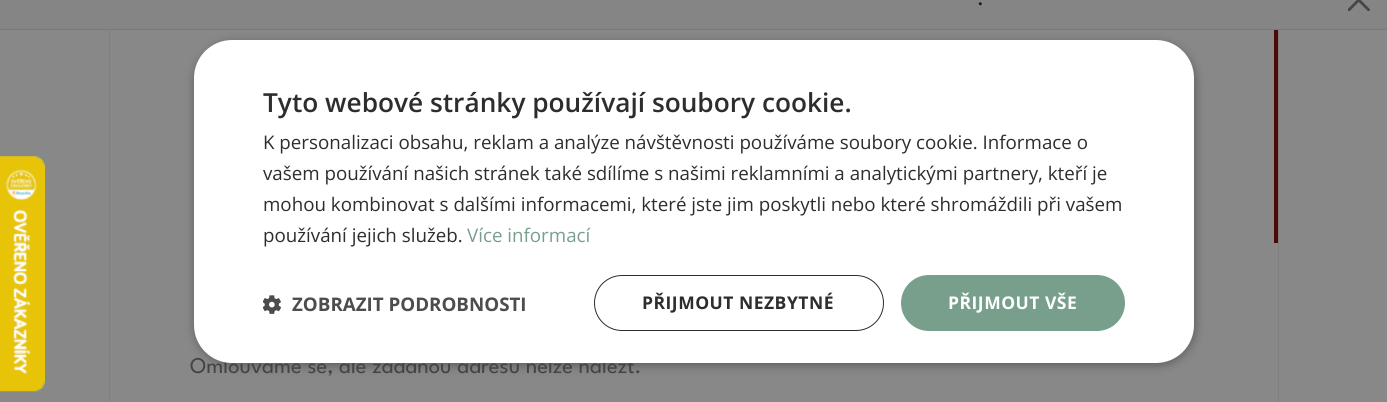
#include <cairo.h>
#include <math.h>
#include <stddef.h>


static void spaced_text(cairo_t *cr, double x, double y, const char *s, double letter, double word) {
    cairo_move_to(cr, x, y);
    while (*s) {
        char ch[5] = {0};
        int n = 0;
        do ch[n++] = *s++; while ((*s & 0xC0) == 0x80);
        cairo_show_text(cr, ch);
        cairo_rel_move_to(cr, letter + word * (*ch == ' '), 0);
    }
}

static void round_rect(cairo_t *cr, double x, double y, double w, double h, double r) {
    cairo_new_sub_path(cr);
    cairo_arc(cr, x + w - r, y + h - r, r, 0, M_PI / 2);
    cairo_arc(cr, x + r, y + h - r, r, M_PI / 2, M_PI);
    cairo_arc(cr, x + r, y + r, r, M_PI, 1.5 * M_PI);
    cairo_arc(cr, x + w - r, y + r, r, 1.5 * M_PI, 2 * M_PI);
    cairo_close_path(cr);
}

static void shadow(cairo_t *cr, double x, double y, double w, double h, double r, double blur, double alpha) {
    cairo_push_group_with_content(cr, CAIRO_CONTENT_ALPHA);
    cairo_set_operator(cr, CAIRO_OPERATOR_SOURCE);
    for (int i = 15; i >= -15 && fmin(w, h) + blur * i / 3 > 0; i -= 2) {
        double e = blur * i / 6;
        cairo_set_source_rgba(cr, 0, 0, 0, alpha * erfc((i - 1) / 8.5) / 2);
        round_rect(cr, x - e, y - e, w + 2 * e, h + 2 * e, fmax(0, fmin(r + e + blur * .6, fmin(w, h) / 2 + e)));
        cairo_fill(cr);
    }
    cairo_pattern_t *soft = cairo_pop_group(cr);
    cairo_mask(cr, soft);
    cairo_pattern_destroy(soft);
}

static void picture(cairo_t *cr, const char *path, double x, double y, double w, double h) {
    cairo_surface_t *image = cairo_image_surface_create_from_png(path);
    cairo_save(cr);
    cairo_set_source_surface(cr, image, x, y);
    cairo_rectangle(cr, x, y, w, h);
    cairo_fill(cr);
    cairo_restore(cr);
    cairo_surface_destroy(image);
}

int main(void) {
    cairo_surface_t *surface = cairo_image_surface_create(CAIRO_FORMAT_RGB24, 1387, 402);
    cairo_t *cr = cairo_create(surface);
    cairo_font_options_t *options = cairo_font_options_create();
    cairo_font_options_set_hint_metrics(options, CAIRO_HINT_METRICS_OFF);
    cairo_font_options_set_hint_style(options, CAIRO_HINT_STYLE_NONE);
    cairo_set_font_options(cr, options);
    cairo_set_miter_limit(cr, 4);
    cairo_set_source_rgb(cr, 0.533, 0.533, 0.533);
    cairo_paint(cr);
    cairo_rectangle(cr, 109.5, -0.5, 1169, 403);
    cairo_set_source_rgb(cr, 0.498, 0.498, 0.498);
    cairo_set_line_width(cr, 1);
    cairo_stroke(cr);
    cairo_set_source_rgb(cr, 0.522, 0.522, 0.525);
    cairo_rectangle(cr, 0, 0, 1387, 29);
    cairo_fill(cr);
    cairo_set_source_rgb(cr, 0.471, 0.478, 0.486);
    cairo_rectangle(cr, 0, 29, 1387, 1);
    cairo_fill(cr);
    cairo_select_font_face(cr, "League Spartan", CAIRO_FONT_SLANT_NORMAL, CAIRO_FONT_WEIGHT_NORMAL);
    cairo_set_font_size(cr, 22.5);
    cairo_set_source_rgb(cr, 0.098, 0.106, 0.114);
    cairo_move_to(cr, 977, 5);
    cairo_show_text(cr, ".");
    picture(cr, "img1.png", 1348, 0, 22, 11);
    picture(cr, "img2.png", 0, 156, 45, 236);
    cairo_set_source_rgb(cr, 0, 0, 0);
    shadow(cr, 195, 43, 1000, 322, 38, 5, 0.35);
    cairo_set_source_rgb(cr, 0.267, 0.267, 0.267);
    cairo_move_to(cr, 190, 373);
    cairo_show_text(cr, "Omlouváme se, ale zadanou adresu nelze nalézt.");
    cairo_set_source_rgb(cr, 1, 1, 1);
    round_rect(cr, 194, 40, 1000, 323, 38);
    cairo_fill(cr);
    cairo_select_font_face(cr, "Open Sans SemiBold", CAIRO_FONT_SLANT_NORMAL, CAIRO_FONT_WEIGHT_NORMAL);
    cairo_set_font_size(cr, 26.25);
    cairo_set_source_rgb(cr, 0.176, 0.176, 0.176);
    cairo_move_to(cr, 263, 112);
    cairo_show_text(cr, "Tyto webové stránky používají soubory cookie.");
    cairo_select_font_face(cr, "Open Sans", CAIRO_FONT_SLANT_NORMAL, CAIRO_FONT_WEIGHT_NORMAL);
    cairo_set_font_size(cr, 18.75);
    cairo_move_to(cr, 263, 149);
    cairo_show_text(cr, "K personalizaci obsahu, reklam a analýze návštěvnosti používáme soubory cookie. Informace o");
    cairo_move_to(cr, 263, 180);
    cairo_show_text(cr, "vašem používání našich stránek také sdílíme s našimi reklamními a analytickými partnery, kteří je");
    cairo_move_to(cr, 263, 211);
    cairo_show_text(cr, "mohou kombinovat s dalšími informacemi, které jste jim poskytli nebo které shromáždili při vašem");
    cairo_move_to(cr, 263, 242);
    cairo_show_text(cr, "používání jejich služeb.");
    cairo_set_source_rgb(cr, 0.467, 0.624, 0.549);
    cairo_move_to(cr, 467, 242);
    cairo_show_text(cr, "Více informací");
    picture(cr, "img3.png", 263, 295, 18, 19);
    cairo_select_font_face(cr, "Open Sans", CAIRO_FONT_SLANT_NORMAL, CAIRO_FONT_WEIGHT_BOLD);
    cairo_set_source_rgb(cr, 0.302, 0.302, 0.302);
    cairo_move_to(cr, 292, 311);
    cairo_show_text(cr, "ZOBRAZIT PODROBNOSTI");
    round_rect(cr, 594.5, 275.5, 289, 55, 27.5);
    cairo_set_source_rgb(cr, 0.176, 0.176, 0.176);
    cairo_stroke(cr);
    cairo_set_font_size(cr, 17.5);
    spaced_text(cr, 642, 309, "PŘIJMOUT NEZBYTNÉ", 0.5, 0);
    cairo_set_source_rgb(cr, 0.467, 0.624, 0.549);
    round_rect(cr, 901, 275, 224, 56, 28);
    cairo_fill(cr);
    cairo_set_source_rgb(cr, 1, 1, 1);
    spaced_text(cr, 948, 309, "PŘIJMOUT VŠE", 0.5, 0);
    cairo_set_source_rgb(cr, 0.306, 0.035, 0.035);
    cairo_rectangle(cr, 1274, 30, 4, 213);
    cairo_fill(cr);
    cairo_surface_write_to_png(surface, "page.png");
    cairo_font_options_destroy(options);
    cairo_destroy(cr);
    cairo_surface_destroy(surface);
    return 0;
}
